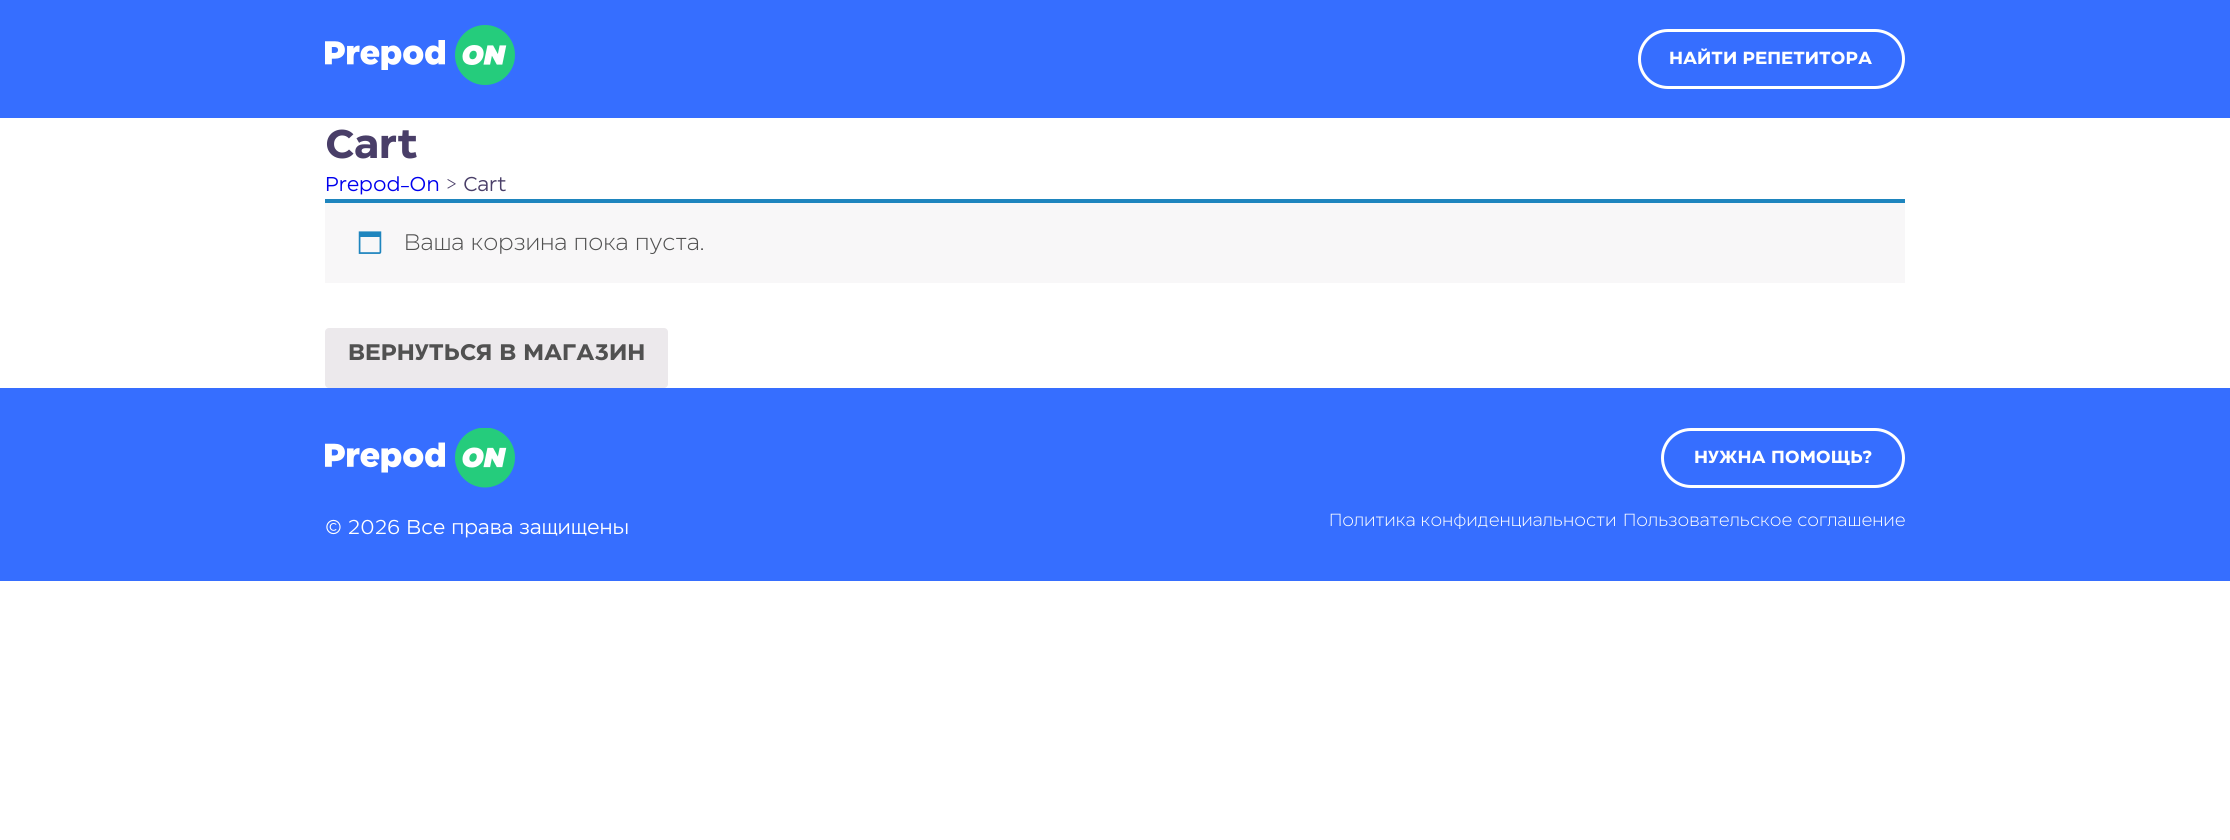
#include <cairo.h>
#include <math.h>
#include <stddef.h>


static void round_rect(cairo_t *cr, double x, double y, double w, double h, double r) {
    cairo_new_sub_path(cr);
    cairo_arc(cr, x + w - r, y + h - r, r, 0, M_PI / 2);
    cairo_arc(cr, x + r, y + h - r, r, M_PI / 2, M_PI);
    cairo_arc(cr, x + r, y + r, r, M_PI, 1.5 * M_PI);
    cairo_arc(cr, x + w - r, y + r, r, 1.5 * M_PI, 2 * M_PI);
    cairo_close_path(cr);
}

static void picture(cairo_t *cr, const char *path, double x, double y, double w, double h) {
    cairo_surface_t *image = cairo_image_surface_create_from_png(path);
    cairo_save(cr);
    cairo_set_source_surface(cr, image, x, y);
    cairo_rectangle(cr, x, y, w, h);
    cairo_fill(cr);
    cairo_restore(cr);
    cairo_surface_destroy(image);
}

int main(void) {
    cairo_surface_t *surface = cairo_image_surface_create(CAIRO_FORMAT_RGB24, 2230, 840);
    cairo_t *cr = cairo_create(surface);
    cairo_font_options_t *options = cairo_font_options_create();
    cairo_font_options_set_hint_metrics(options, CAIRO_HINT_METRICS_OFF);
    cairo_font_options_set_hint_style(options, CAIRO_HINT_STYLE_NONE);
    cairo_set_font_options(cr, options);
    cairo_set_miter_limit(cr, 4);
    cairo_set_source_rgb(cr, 1, 1, 1);
    cairo_paint(cr);
    cairo_set_source_rgb(cr, 0.212, 0.431, 1);
    cairo_rectangle(cr, 0, 0, 2230, 118);
    cairo_fill(cr);
    picture(cr, "img1.png", 325, 25, 190, 60);
    round_rect(cr, 1639.5, 30.5, 264, 57, 28.5);
    cairo_set_source_rgb(cr, 1, 1, 1);
    cairo_set_line_width(cr, 3);
    cairo_stroke(cr);
    cairo_select_font_face(cr, "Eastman", CAIRO_FONT_SLANT_NORMAL, CAIRO_FONT_WEIGHT_BOLD);
    cairo_set_font_size(cr, 17.5);
    cairo_move_to(cr, 1669, 64);
    cairo_show_text(cr, "НАЙТИ РЕПЕТИТОРА");
    cairo_set_font_size(cr, 40);
    cairo_set_source_rgb(cr, 0.286, 0.243, 0.408);
    cairo_move_to(cr, 325, 158);
    cairo_show_text(cr, "Cart");
    cairo_select_font_face(cr, "Eastman", CAIRO_FONT_SLANT_NORMAL, CAIRO_FONT_WEIGHT_NORMAL);
    cairo_set_font_size(cr, 20);
    cairo_set_source_rgb(cr, 0, 0, 0.933);
    cairo_move_to(cr, 325, 191);
    cairo_show_text(cr, "Prepod-On");
    cairo_set_source_rgb(cr, 0.286, 0.243, 0.408);
    cairo_move_to(cr, 446, 191);
    cairo_show_text(cr, "> Cart");
    cairo_set_source_rgb(cr, 0.969, 0.965, 0.969);
    cairo_rectangle(cr, 325, 203, 1580, 80);
    cairo_fill(cr);
    cairo_set_source_rgb(cr, 0.118, 0.522, 0.745);
    cairo_rectangle(cr, 325, 199, 1580, 4);
    cairo_fill(cr);
    picture(cr, "img2.png", 358, 231, 24, 23);
    cairo_select_font_face(cr, "Eastman Light", CAIRO_FONT_SLANT_NORMAL, CAIRO_FONT_WEIGHT_NORMAL);
    cairo_set_font_size(cr, 22.5);
    cairo_set_source_rgb(cr, 0.318, 0.318, 0.318);
    cairo_move_to(cr, 404, 250);
    cairo_show_text(cr, "Ваша корзина пока пуста.");
    cairo_set_source_rgb(cr, 0.922, 0.914, 0.922);
    round_rect(cr, 325, 328, 343, 60, 4);
    cairo_fill(cr);
    cairo_select_font_face(cr, "Eastman", CAIRO_FONT_SLANT_NORMAL, CAIRO_FONT_WEIGHT_BOLD);
    cairo_set_source_rgb(cr, 0.318, 0.318, 0.318);
    cairo_move_to(cr, 348, 360);
    cairo_show_text(cr, "ВЕРНУТЬСЯ В МАГАЗИН");
    cairo_set_source_rgb(cr, 0.212, 0.431, 1);
    cairo_rectangle(cr, 0, 388, 2230, 193);
    cairo_fill(cr);
    picture(cr, "img3.png", 325, 428, 190, 60);
    cairo_select_font_face(cr, "Eastman", CAIRO_FONT_SLANT_NORMAL, CAIRO_FONT_WEIGHT_NORMAL);
    cairo_set_font_size(cr, 20);
    cairo_set_source_rgb(cr, 1, 1, 1);
    cairo_move_to(cr, 325, 534);
    cairo_show_text(cr, "© 2026 Все права защищены");
    round_rect(cr, 1662.5, 429.5, 241, 57, 28.5);
    cairo_stroke(cr);
    cairo_select_font_face(cr, "Eastman", CAIRO_FONT_SLANT_NORMAL, CAIRO_FONT_WEIGHT_BOLD);
    cairo_set_font_size(cr, 17.5);
    cairo_move_to(cr, 1694, 463);
    cairo_show_text(cr, "НУЖНА ПОМОЩЬ?");
    cairo_select_font_face(cr, "Eastman Light", CAIRO_FONT_SLANT_NORMAL, CAIRO_FONT_WEIGHT_NORMAL);
    cairo_move_to(cr, 1329, 526);
    cairo_show_text(cr, "Политика конфиденциальности");
    cairo_move_to(cr, 1623, 526);
    cairo_show_text(cr, "Пользовательское соглашение");
    cairo_surface_write_to_png(surface, "page.png");
    cairo_font_options_destroy(options);
    cairo_destroy(cr);
    cairo_surface_destroy(surface);
    return 0;
}
